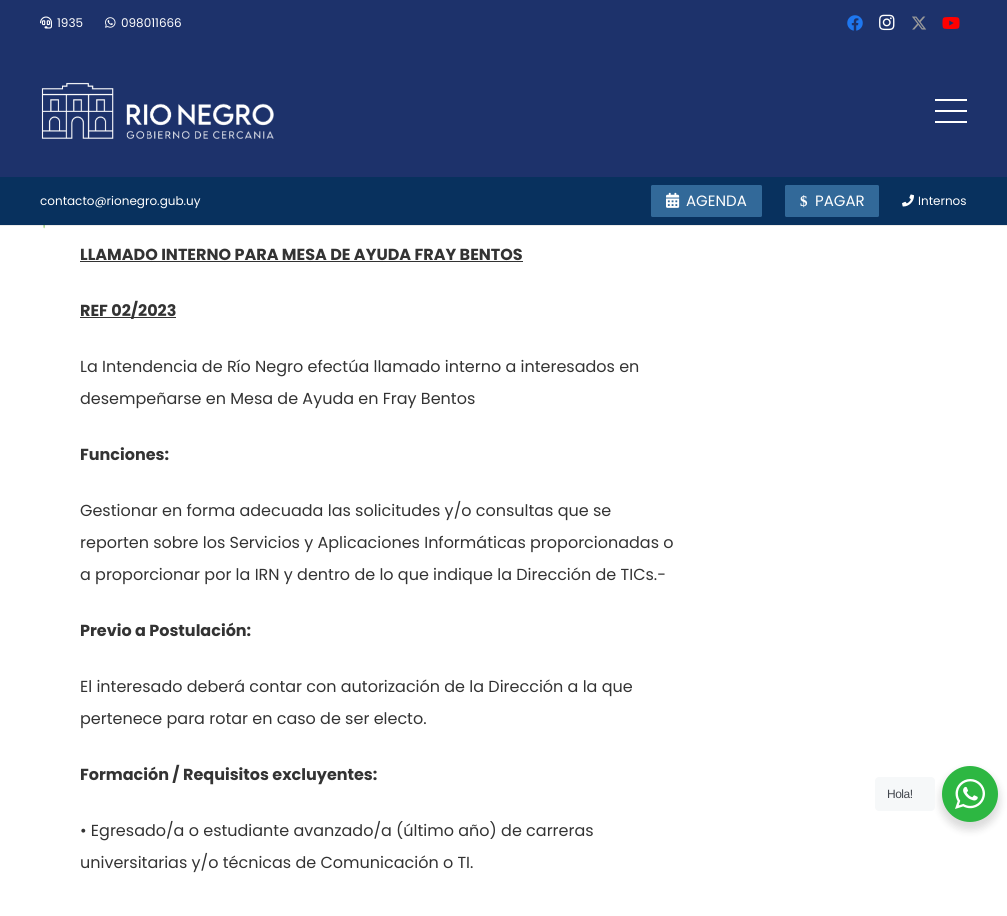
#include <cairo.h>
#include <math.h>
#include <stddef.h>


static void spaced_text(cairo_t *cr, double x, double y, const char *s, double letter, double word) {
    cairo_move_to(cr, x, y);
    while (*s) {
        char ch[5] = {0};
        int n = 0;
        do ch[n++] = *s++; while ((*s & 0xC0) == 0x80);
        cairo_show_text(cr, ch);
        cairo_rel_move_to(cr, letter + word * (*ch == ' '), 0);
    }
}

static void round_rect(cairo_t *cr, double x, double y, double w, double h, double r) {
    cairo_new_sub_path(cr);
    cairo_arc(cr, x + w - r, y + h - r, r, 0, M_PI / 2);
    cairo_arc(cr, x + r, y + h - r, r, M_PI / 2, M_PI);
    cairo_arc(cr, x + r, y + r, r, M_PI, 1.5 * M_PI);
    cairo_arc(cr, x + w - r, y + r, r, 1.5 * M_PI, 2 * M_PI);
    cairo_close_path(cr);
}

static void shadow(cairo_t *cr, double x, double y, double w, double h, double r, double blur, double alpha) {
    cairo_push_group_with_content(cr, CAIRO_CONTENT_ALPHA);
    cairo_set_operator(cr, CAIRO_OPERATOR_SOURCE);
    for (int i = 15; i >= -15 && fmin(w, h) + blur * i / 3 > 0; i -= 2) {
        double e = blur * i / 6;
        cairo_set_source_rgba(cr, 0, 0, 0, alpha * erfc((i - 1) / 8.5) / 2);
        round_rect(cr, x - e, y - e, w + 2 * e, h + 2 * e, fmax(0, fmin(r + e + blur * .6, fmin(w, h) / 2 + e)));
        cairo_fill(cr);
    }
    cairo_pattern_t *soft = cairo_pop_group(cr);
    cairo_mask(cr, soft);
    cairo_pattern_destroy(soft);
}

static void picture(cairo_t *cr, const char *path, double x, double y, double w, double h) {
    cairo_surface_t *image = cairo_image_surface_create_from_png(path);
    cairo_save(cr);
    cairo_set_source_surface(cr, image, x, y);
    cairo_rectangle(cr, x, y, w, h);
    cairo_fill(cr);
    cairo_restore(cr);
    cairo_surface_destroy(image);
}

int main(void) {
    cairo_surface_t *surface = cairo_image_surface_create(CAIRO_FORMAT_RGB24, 1007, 916);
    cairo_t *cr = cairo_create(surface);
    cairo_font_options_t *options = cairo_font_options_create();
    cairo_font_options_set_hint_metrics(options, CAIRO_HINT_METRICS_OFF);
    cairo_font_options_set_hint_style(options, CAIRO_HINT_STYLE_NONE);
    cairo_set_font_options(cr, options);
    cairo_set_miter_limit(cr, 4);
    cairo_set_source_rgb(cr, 1, 1, 1);
    cairo_paint(cr);
    cairo_set_source_rgb(cr, 0.114, 0.196, 0.42);
    cairo_rectangle(cr, 0, 0, 1007, 177);
    cairo_fill(cr);
    picture(cr, "img1.png", 40, 16, 12, 13);
    cairo_select_font_face(cr, "Poppins", CAIRO_FONT_SLANT_NORMAL, CAIRO_FONT_WEIGHT_NORMAL);
    cairo_set_font_size(cr, 12);
    cairo_set_source_rgb(cr, 1, 1, 1);
    cairo_move_to(cr, 57, 27);
    cairo_show_text(cr, "1935");
    picture(cr, "img2.png", 105, 17, 11, 11);
    cairo_move_to(cr, 121, 27);
    cairo_show_text(cr, "098011666");
    picture(cr, "img3.png", 847, 15, 16, 16);
    picture(cr, "img4.png", 879, 14, 16, 17);
    picture(cr, "img5.png", 912, 16, 15, 14);
    picture(cr, "img6.png", 942, 17, 18, 12);
    picture(cr, "img7.png", 41, 82, 233, 57);
    cairo_rectangle(cr, 935, 110, 32, 2);
    cairo_fill(cr);
    cairo_rectangle(cr, 935, 99, 32, 2);
    cairo_fill(cr);
    cairo_rectangle(cr, 935, 121, 32, 2);
    cairo_fill(cr);
    picture(cr, "img10.png", 43, 225, 2, 4);
    cairo_set_source_rgba(cr, 0, 0, 0, 0.08);
    cairo_rectangle(cr, 0, 225, 1007, 1);
    cairo_fill(cr);
    cairo_set_source_rgb(cr, 0.035, 0.192, 0.369);
    cairo_rectangle(cr, 0, 177, 1007, 48);
    cairo_fill(cr);
    cairo_set_source_rgb(cr, 1, 1, 1);
    cairo_move_to(cr, 40, 205);
    cairo_show_text(cr, "contacto@rionegro.gub.uy");
    cairo_set_source_rgb(cr, 0.196, 0.412, 0.6);
    round_rect(cr, 651, 185, 111, 32, 1.5);
    cairo_fill(cr);
    picture(cr, "img8.png", 666, 192, 14, 16);
    cairo_set_font_size(cr, 15);
    cairo_set_source_rgb(cr, 1, 1, 1);
    cairo_move_to(cr, 686, 206);
    cairo_show_text(cr, "AGENDA");
    cairo_set_source_rgb(cr, 0.196, 0.412, 0.6);
    round_rect(cr, 785, 185, 94, 32, 1.5);
    cairo_fill(cr);
    cairo_select_font_face(cr, "Liberation Serif", CAIRO_FONT_SLANT_NORMAL, CAIRO_FONT_WEIGHT_BOLD);
    cairo_set_source_rgb(cr, 1, 1, 1);
    cairo_move_to(cr, 800, 206);
    cairo_show_text(cr, "$");
    cairo_select_font_face(cr, "Poppins", CAIRO_FONT_SLANT_NORMAL, CAIRO_FONT_WEIGHT_NORMAL);
    cairo_move_to(cr, 815, 206);
    cairo_show_text(cr, "PAGAR");
    picture(cr, "img9.png", 902, 194, 12, 13);
    cairo_set_font_size(cr, 12);
    cairo_move_to(cr, 918, 205);
    cairo_show_text(cr, "Internos");
    cairo_select_font_face(cr, "Poppins", CAIRO_FONT_SLANT_NORMAL, CAIRO_FONT_WEIGHT_BOLD);
    cairo_set_font_size(cr, 16);
    cairo_set_source_rgb(cr, 0.2, 0.2, 0.2);
    cairo_move_to(cr, 80, 260);
    cairo_show_text(cr, "LLAMADO INTERNO PARA MESA DE AYUDA FRAY BENTOS");
    cairo_rectangle(cr, 80, 261, 443, 1);
    cairo_fill(cr);
    cairo_rectangle(cr, 80, 317, 96, 1);
    cairo_fill(cr);
    cairo_move_to(cr, 80, 316);
    cairo_show_text(cr, "REF 02/2023");
    cairo_select_font_face(cr, "Poppins", CAIRO_FONT_SLANT_NORMAL, CAIRO_FONT_WEIGHT_NORMAL);
    cairo_move_to(cr, 80, 372);
    cairo_show_text(cr, "La Intendencia de Río Negro efectúa llamado interno a interesados en");
    cairo_move_to(cr, 80, 404);
    cairo_show_text(cr, "desempeñarse en Mesa de Ayuda en Fray Bentos");
    cairo_select_font_face(cr, "Poppins", CAIRO_FONT_SLANT_NORMAL, CAIRO_FONT_WEIGHT_BOLD);
    cairo_move_to(cr, 80, 460);
    cairo_show_text(cr, "Funciones:");
    cairo_select_font_face(cr, "Poppins", CAIRO_FONT_SLANT_NORMAL, CAIRO_FONT_WEIGHT_NORMAL);
    cairo_move_to(cr, 80, 516);
    cairo_show_text(cr, "Gestionar en forma adecuada las solicitudes y/o consultas que se");
    cairo_move_to(cr, 80, 548);
    cairo_show_text(cr, "reporten sobre los Servicios y Aplicaciones Informáticas proporcionadas o");
    cairo_move_to(cr, 80, 580);
    cairo_show_text(cr, "a proporcionar por la IRN y dentro de lo que indique la Dirección de TICs.-");
    cairo_select_font_face(cr, "Poppins", CAIRO_FONT_SLANT_NORMAL, CAIRO_FONT_WEIGHT_BOLD);
    cairo_move_to(cr, 80, 636);
    cairo_show_text(cr, "Previo a Postulación:");
    cairo_select_font_face(cr, "Poppins", CAIRO_FONT_SLANT_NORMAL, CAIRO_FONT_WEIGHT_NORMAL);
    cairo_move_to(cr, 80, 692);
    cairo_show_text(cr, "El interesado deberá contar con autorización de la Dirección a la que");
    cairo_move_to(cr, 80, 724);
    cairo_show_text(cr, "pertenece para rotar en caso de ser electo.");
    cairo_select_font_face(cr, "Poppins", CAIRO_FONT_SLANT_NORMAL, CAIRO_FONT_WEIGHT_BOLD);
    cairo_move_to(cr, 80, 780);
    cairo_show_text(cr, "Formación / Requisitos excluyentes:");
    cairo_select_font_face(cr, "Poppins", CAIRO_FONT_SLANT_NORMAL, CAIRO_FONT_WEIGHT_NORMAL);
    cairo_move_to(cr, 80, 836);
    cairo_show_text(cr, "• Egresado/a o estudiante avanzado/a (último año) de carreras");
    cairo_move_to(cr, 80, 868);
    cairo_show_text(cr, "universitarias y/o técnicas de Comunicación o TI.");
    cairo_set_source_rgb(cr, 0, 0, 0);
    shadow(cr, 940, 770, 60, 60, 30, 4, 0.14);
    cairo_set_source_rgb(cr, 0.961, 0.969, 0.976);
    round_rect(cr, 875, 777, 60, 34, 4);
    cairo_fill(cr);
    cairo_select_font_face(cr, "Liberation Sans", CAIRO_FONT_SLANT_NORMAL, CAIRO_FONT_WEIGHT_NORMAL);
    cairo_set_font_size(cr, 12);
    cairo_set_source_rgb(cr, 0.263, 0.278, 0.306);
    spaced_text(cr, 887, 798, "Hola!", -0.5, 0);
    cairo_set_source_rgb(cr, 0.176, 0.718, 0.259);
    cairo_new_path(cr);
    cairo_arc(cr, 970, 794, 28, 0, 2 * M_PI);
    cairo_fill(cr);
    picture(cr, "img11.png", 955, 779, 30, 30);
    cairo_surface_write_to_png(surface, "page.png");
    cairo_font_options_destroy(options);
    cairo_destroy(cr);
    cairo_surface_destroy(surface);
    return 0;
}
